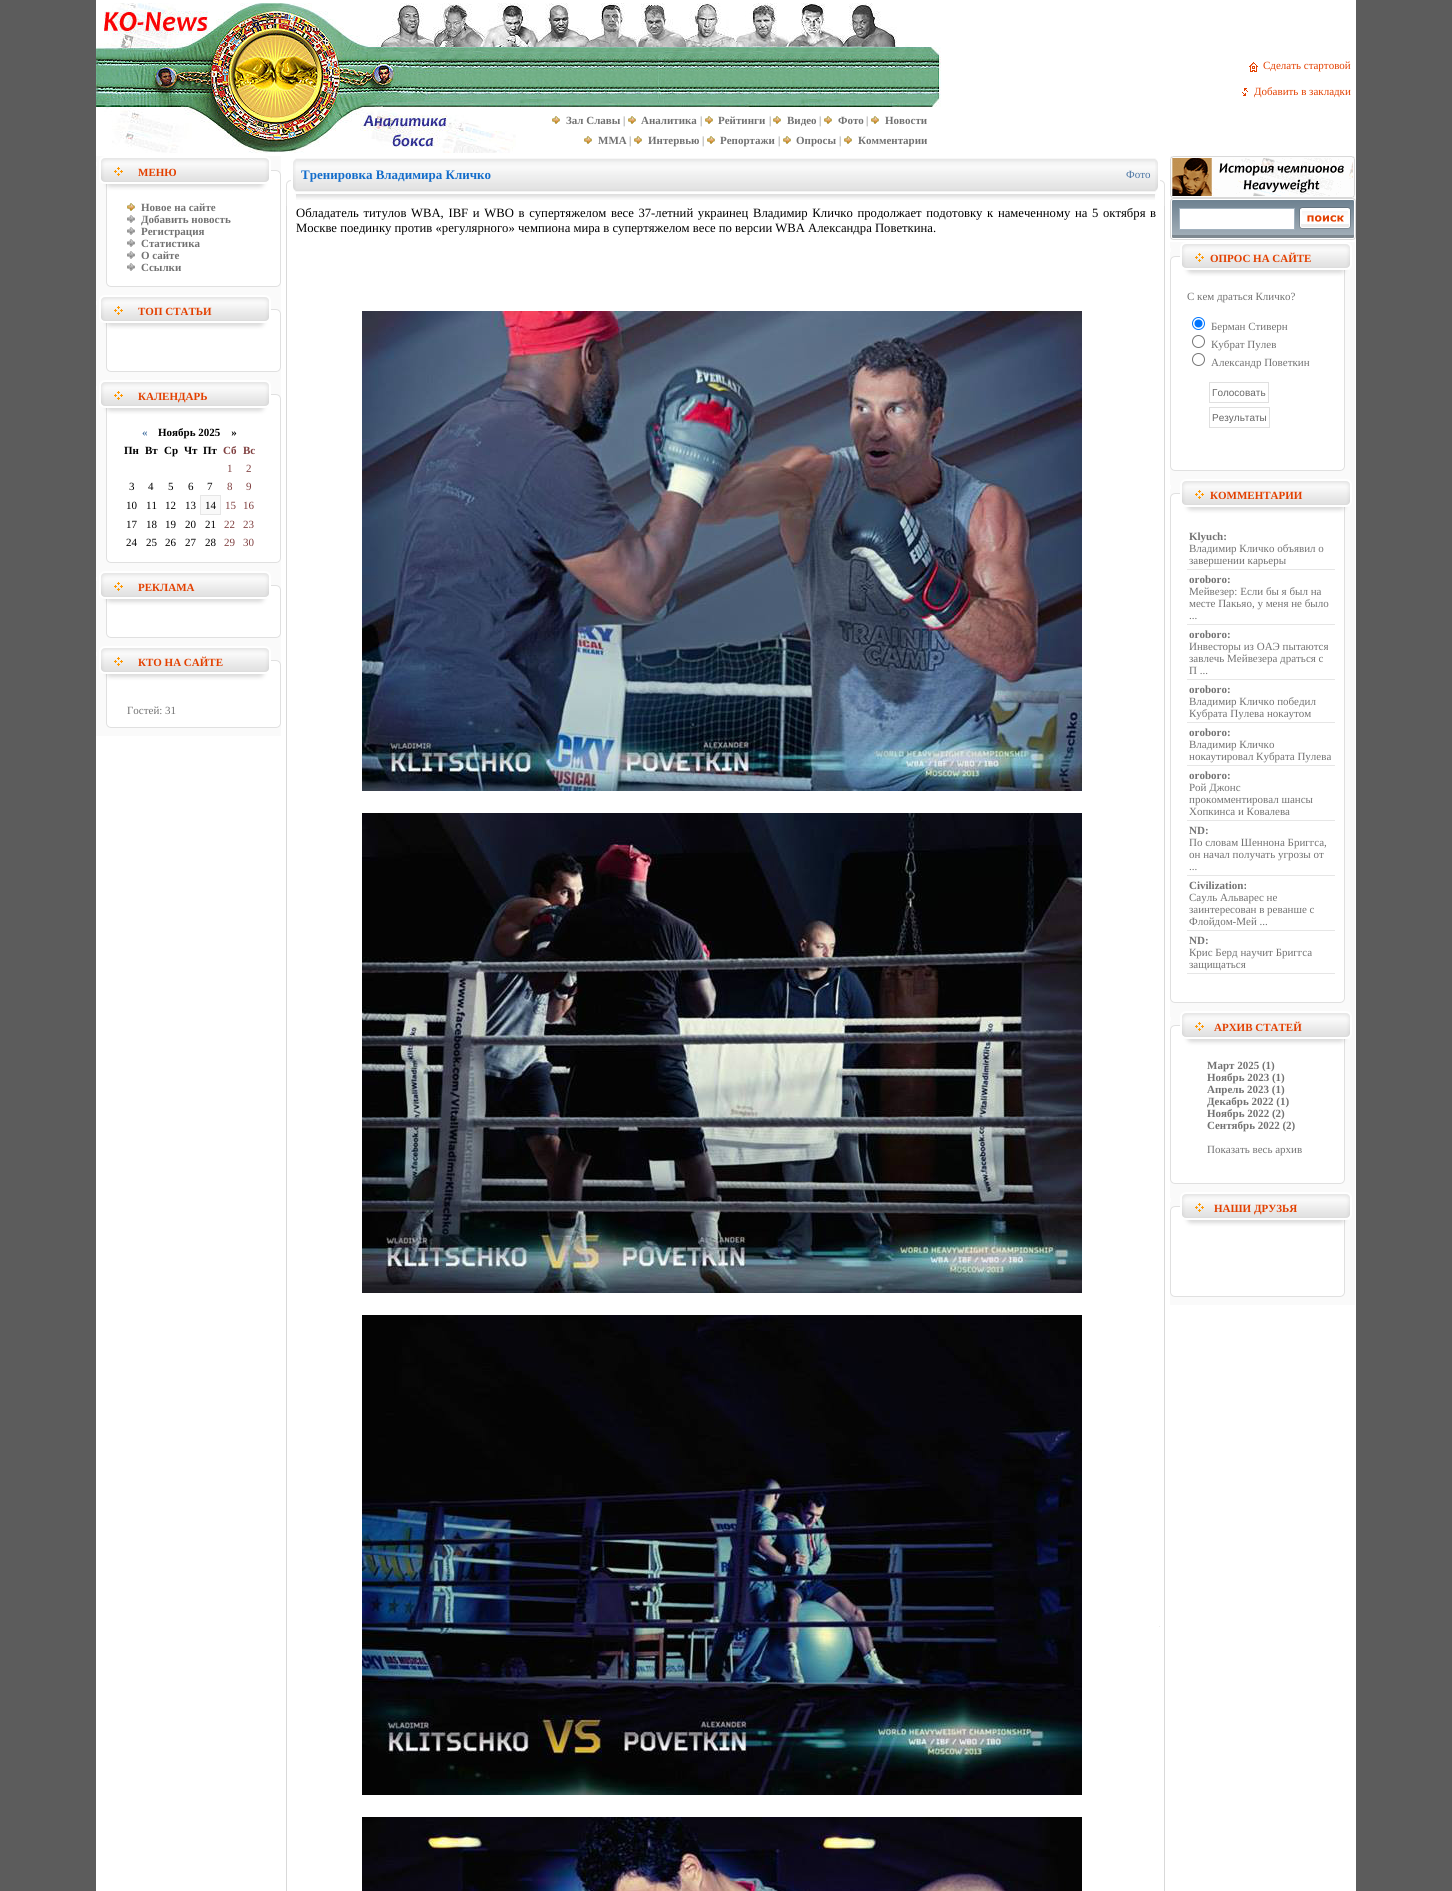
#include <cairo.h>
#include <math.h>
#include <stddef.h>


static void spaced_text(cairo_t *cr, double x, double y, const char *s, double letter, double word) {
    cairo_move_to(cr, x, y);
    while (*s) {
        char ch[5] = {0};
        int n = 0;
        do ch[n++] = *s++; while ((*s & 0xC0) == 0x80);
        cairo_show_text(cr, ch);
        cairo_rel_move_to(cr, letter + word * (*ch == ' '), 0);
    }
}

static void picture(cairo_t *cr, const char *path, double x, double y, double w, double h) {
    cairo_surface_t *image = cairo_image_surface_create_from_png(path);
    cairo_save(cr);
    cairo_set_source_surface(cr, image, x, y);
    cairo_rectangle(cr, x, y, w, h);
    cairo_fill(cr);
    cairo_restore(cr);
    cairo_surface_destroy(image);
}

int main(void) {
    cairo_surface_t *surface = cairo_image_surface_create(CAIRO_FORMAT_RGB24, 1452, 1891);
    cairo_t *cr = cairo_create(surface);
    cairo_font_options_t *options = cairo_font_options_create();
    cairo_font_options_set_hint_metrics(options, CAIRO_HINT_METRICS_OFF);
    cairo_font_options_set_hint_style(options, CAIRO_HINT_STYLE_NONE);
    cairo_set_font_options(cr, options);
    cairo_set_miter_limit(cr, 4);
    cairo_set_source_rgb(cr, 0.361, 0.361, 0.361);
    cairo_paint(cr);
    cairo_set_source_rgb(cr, 1, 1, 1);
    cairo_rectangle(cr, 96, 0, 1260, 3);
    cairo_fill(cr);
    cairo_rectangle(cr, 473, 3, 883, 150);
    cairo_fill(cr);
    picture(cr, "img1.png", 473, 47, 468, 60);
    picture(cr, "img2.png", 96, 3, 377, 150);
    picture(cr, "img3.png", 473, 3, 437, 44);
    picture(cr, "img4.png", 1249, 62, 9, 10);
    cairo_select_font_face(cr, "Liberation Serif", CAIRO_FONT_SLANT_NORMAL, CAIRO_FONT_WEIGHT_NORMAL);
    cairo_set_font_size(cr, 11);
    cairo_set_source_rgb(cr, 0.89, 0.251, 0);
    cairo_move_to(cr, 1263, 69);
    cairo_show_text(cr, "Сделать стартовой");
    picture(cr, "img5.png", 1242, 88, 6, 8);
    cairo_move_to(cr, 1254, 95);
    cairo_show_text(cr, "Добавить в закладки");
    picture(cr, "img6.png", 473, 124, 43, 29);
    picture(cr, "img7.png", 552, 116, 8, 8);
    cairo_select_font_face(cr, "Liberation Serif", CAIRO_FONT_SLANT_NORMAL, CAIRO_FONT_WEIGHT_BOLD);
    cairo_set_source_rgb(cr, 0.447, 0.447, 0.447);
    cairo_move_to(cr, 566, 124);
    cairo_show_text(cr, "Зал Славы");
    cairo_select_font_face(cr, "Liberation Serif", CAIRO_FONT_SLANT_NORMAL, CAIRO_FONT_WEIGHT_NORMAL);
    cairo_move_to(cr, 623, 124);
    cairo_show_text(cr, "|");
    picture(cr, "img7.png", 628, 116, 8, 8);
    cairo_select_font_face(cr, "Liberation Serif", CAIRO_FONT_SLANT_NORMAL, CAIRO_FONT_WEIGHT_BOLD);
    cairo_move_to(cr, 641, 124);
    cairo_show_text(cr, "Аналитика");
    cairo_select_font_face(cr, "Liberation Serif", CAIRO_FONT_SLANT_NORMAL, CAIRO_FONT_WEIGHT_NORMAL);
    cairo_move_to(cr, 700, 124);
    cairo_show_text(cr, "|");
    picture(cr, "img7.png", 705, 116, 8, 8);
    cairo_select_font_face(cr, "Liberation Serif", CAIRO_FONT_SLANT_NORMAL, CAIRO_FONT_WEIGHT_BOLD);
    cairo_move_to(cr, 718, 124);
    cairo_show_text(cr, "Рейтинги");
    cairo_select_font_face(cr, "Liberation Serif", CAIRO_FONT_SLANT_NORMAL, CAIRO_FONT_WEIGHT_NORMAL);
    cairo_move_to(cr, 769, 124);
    cairo_show_text(cr, "|");
    picture(cr, "img7.png", 773, 116, 8, 8);
    cairo_select_font_face(cr, "Liberation Serif", CAIRO_FONT_SLANT_NORMAL, CAIRO_FONT_WEIGHT_BOLD);
    cairo_move_to(cr, 787, 124);
    cairo_show_text(cr, "Видео");
    cairo_select_font_face(cr, "Liberation Serif", CAIRO_FONT_SLANT_NORMAL, CAIRO_FONT_WEIGHT_NORMAL);
    cairo_move_to(cr, 819, 124);
    cairo_show_text(cr, "|");
    picture(cr, "img7.png", 824, 116, 8, 8);
    cairo_select_font_face(cr, "Liberation Serif", CAIRO_FONT_SLANT_NORMAL, CAIRO_FONT_WEIGHT_BOLD);
    cairo_move_to(cr, 838, 124);
    cairo_show_text(cr, "Фото");
    cairo_select_font_face(cr, "Liberation Serif", CAIRO_FONT_SLANT_NORMAL, CAIRO_FONT_WEIGHT_NORMAL);
    cairo_move_to(cr, 866, 124);
    cairo_show_text(cr, "|");
    picture(cr, "img7.png", 871, 116, 8, 8);
    cairo_select_font_face(cr, "Liberation Serif", CAIRO_FONT_SLANT_NORMAL, CAIRO_FONT_WEIGHT_BOLD);
    cairo_move_to(cr, 885, 124);
    cairo_show_text(cr, "Новости");
    picture(cr, "img7.png", 584, 136, 8, 8);
    cairo_move_to(cr, 598, 144);
    cairo_show_text(cr, "MMA");
    cairo_select_font_face(cr, "Liberation Serif", CAIRO_FONT_SLANT_NORMAL, CAIRO_FONT_WEIGHT_NORMAL);
    cairo_move_to(cr, 629, 144);
    cairo_show_text(cr, "|");
    picture(cr, "img7.png", 634, 136, 8, 8);
    cairo_select_font_face(cr, "Liberation Serif", CAIRO_FONT_SLANT_NORMAL, CAIRO_FONT_WEIGHT_BOLD);
    cairo_move_to(cr, 648, 144);
    cairo_show_text(cr, "Интервью");
    cairo_select_font_face(cr, "Liberation Serif", CAIRO_FONT_SLANT_NORMAL, CAIRO_FONT_WEIGHT_NORMAL);
    cairo_move_to(cr, 702, 144);
    cairo_show_text(cr, "|");
    picture(cr, "img7.png", 707, 136, 8, 8);
    cairo_select_font_face(cr, "Liberation Serif", CAIRO_FONT_SLANT_NORMAL, CAIRO_FONT_WEIGHT_BOLD);
    cairo_move_to(cr, 720, 144);
    cairo_show_text(cr, "Репортажи");
    cairo_select_font_face(cr, "Liberation Serif", CAIRO_FONT_SLANT_NORMAL, CAIRO_FONT_WEIGHT_NORMAL);
    cairo_move_to(cr, 778, 144);
    cairo_show_text(cr, "|");
    picture(cr, "img7.png", 783, 136, 8, 8);
    cairo_select_font_face(cr, "Liberation Serif", CAIRO_FONT_SLANT_NORMAL, CAIRO_FONT_WEIGHT_BOLD);
    cairo_move_to(cr, 796, 144);
    cairo_show_text(cr, "Опросы");
    cairo_select_font_face(cr, "Liberation Serif", CAIRO_FONT_SLANT_NORMAL, CAIRO_FONT_WEIGHT_NORMAL);
    cairo_move_to(cr, 839, 144);
    cairo_show_text(cr, "|");
    picture(cr, "img7.png", 844, 136, 8, 8);
    cairo_select_font_face(cr, "Liberation Serif", CAIRO_FONT_SLANT_NORMAL, CAIRO_FONT_WEIGHT_BOLD);
    cairo_move_to(cr, 858, 144);
    cairo_show_text(cr, "Комментарии");
    cairo_set_source_rgb(cr, 1, 1, 1);
    cairo_rectangle(cr, 96, 153, 1260, 1738);
    cairo_fill(cr);
    picture(cr, "img8.png", 96, 156, 185, 28);
    cairo_rectangle(cr, 96, 162, 1, 4);
    cairo_fill(cr);
    cairo_set_source_rgb(cr, 0.89, 0.251, 0);
    cairo_move_to(cr, 138, 176);
    cairo_show_text(cr, "МЕНЮ");
    picture(cr, "img9.png", 96, 184, 185, 15);
    picture(cr, "img10.png", 96, 199, 185, 76);
    picture(cr, "img7.png", 127, 203, 8, 8);
    cairo_set_source_rgb(cr, 0.447, 0.447, 0.447);
    cairo_move_to(cr, 141, 211);
    cairo_show_text(cr, "Новое на сайте");
    picture(cr, "img11.png", 127, 215, 8, 8);
    cairo_move_to(cr, 141, 223);
    cairo_show_text(cr, "Добавить новость");
    picture(cr, "img11.png", 127, 227, 8, 8);
    cairo_move_to(cr, 141, 235);
    cairo_show_text(cr, "Регистрация");
    picture(cr, "img11.png", 127, 239, 8, 8);
    cairo_move_to(cr, 141, 247);
    cairo_show_text(cr, "Статистика");
    picture(cr, "img11.png", 127, 251, 8, 8);
    cairo_move_to(cr, 141, 259);
    cairo_show_text(cr, "О сайте");
    picture(cr, "img11.png", 127, 263, 8, 8);
    cairo_move_to(cr, 141, 271);
    cairo_show_text(cr, "Ссылки");
    picture(cr, "img12.png", 96, 275, 185, 20);
    picture(cr, "img8.png", 96, 295, 185, 28);
    cairo_set_source_rgb(cr, 1, 1, 1);
    cairo_rectangle(cr, 96, 301, 1, 4);
    cairo_fill(cr);
    cairo_set_source_rgb(cr, 0.89, 0.251, 0);
    cairo_move_to(cr, 138, 315);
    cairo_show_text(cr, "ТОП СТАТЬИ");
    picture(cr, "img9.png", 96, 323, 185, 15);
    picture(cr, "img13.png", 96, 338, 185, 22);
    picture(cr, "img12.png", 96, 360, 185, 20);
    picture(cr, "img8.png", 96, 380, 185, 28);
    cairo_set_source_rgb(cr, 1, 1, 1);
    cairo_rectangle(cr, 96, 386, 1, 4);
    cairo_fill(cr);
    cairo_set_source_rgb(cr, 0.89, 0.251, 0);
    cairo_move_to(cr, 138, 400);
    cairo_show_text(cr, "КАЛЕНДАРЬ");
    picture(cr, "img9.png", 96, 408, 185, 15);
    picture(cr, "img14.png", 96, 423, 185, 128);
    cairo_set_source_rgb(cr, 0.286, 0.455, 0.639);
    cairo_move_to(cr, 142, 436);
    cairo_show_text(cr, "«");
    cairo_set_source_rgb(cr, 0, 0, 0);
    cairo_move_to(cr, 158, 436);
    cairo_show_text(cr, "Ноябрь 2025    »");
    cairo_move_to(cr, 124, 454);
    cairo_show_text(cr, "Пн");
    cairo_move_to(cr, 145, 454);
    cairo_show_text(cr, "Вт");
    cairo_move_to(cr, 164, 454);
    cairo_show_text(cr, "Ср");
    cairo_move_to(cr, 184, 454);
    cairo_show_text(cr, "Чт");
    cairo_move_to(cr, 203, 454);
    cairo_show_text(cr, "Пт");
    cairo_set_source_rgb(cr, 0.502, 0.251, 0.251);
    cairo_move_to(cr, 223, 454);
    cairo_show_text(cr, "Сб");
    cairo_move_to(cr, 243, 454);
    cairo_show_text(cr, "Вс");
    cairo_select_font_face(cr, "Liberation Serif", CAIRO_FONT_SLANT_NORMAL, CAIRO_FONT_WEIGHT_NORMAL);
    cairo_move_to(cr, 227, 472);
    cairo_show_text(cr, "1");
    cairo_move_to(cr, 246, 472);
    cairo_show_text(cr, "2");
    cairo_set_source_rgb(cr, 0, 0, 0);
    cairo_move_to(cr, 129, 490);
    cairo_show_text(cr, "3");
    cairo_move_to(cr, 148, 490);
    cairo_show_text(cr, "4");
    cairo_move_to(cr, 168, 490);
    cairo_show_text(cr, "5");
    cairo_move_to(cr, 188, 490);
    cairo_show_text(cr, "6");
    cairo_move_to(cr, 207, 490);
    cairo_show_text(cr, "7");
    cairo_set_source_rgb(cr, 0.502, 0.251, 0.251);
    cairo_move_to(cr, 227, 490);
    cairo_show_text(cr, "8");
    cairo_move_to(cr, 246, 490);
    cairo_show_text(cr, "9");
    cairo_set_source_rgb(cr, 0, 0, 0);
    cairo_move_to(cr, 126, 509);
    cairo_show_text(cr, "10");
    cairo_move_to(cr, 146, 509);
    cairo_show_text(cr, "11");
    cairo_move_to(cr, 165, 509);
    cairo_show_text(cr, "12");
    cairo_move_to(cr, 185, 509);
    cairo_show_text(cr, "13");
    cairo_set_source_rgb(cr, 0.976, 0.976, 0.976);
    cairo_rectangle(cr, 201, 496, 19, 18);
    cairo_fill(cr);
    cairo_set_source_rgb(cr, 0.902, 0.902, 0.902);
    cairo_rectangle(cr, 200, 495, 21, 1);
    cairo_fill(cr);
    cairo_rectangle(cr, 220, 495, 1, 20);
    cairo_fill(cr);
    cairo_rectangle(cr, 200, 514, 21, 1);
    cairo_fill(cr);
    cairo_rectangle(cr, 200, 495, 1, 20);
    cairo_fill(cr);
    cairo_set_source_rgb(cr, 0, 0, 0);
    cairo_move_to(cr, 205, 509);
    cairo_show_text(cr, "14");
    cairo_set_source_rgb(cr, 0.502, 0.251, 0.251);
    cairo_move_to(cr, 225, 509);
    cairo_show_text(cr, "15");
    cairo_move_to(cr, 243, 509);
    cairo_show_text(cr, "16");
    cairo_set_source_rgb(cr, 0, 0, 0);
    cairo_move_to(cr, 126, 528);
    cairo_show_text(cr, "17");
    cairo_move_to(cr, 146, 528);
    cairo_show_text(cr, "18");
    cairo_move_to(cr, 165, 528);
    cairo_show_text(cr, "19");
    cairo_move_to(cr, 185, 528);
    cairo_show_text(cr, "20");
    cairo_move_to(cr, 205, 528);
    cairo_show_text(cr, "21");
    cairo_set_source_rgb(cr, 0.502, 0.251, 0.251);
    cairo_move_to(cr, 224, 528);
    cairo_show_text(cr, "22");
    cairo_move_to(cr, 243, 528);
    cairo_show_text(cr, "23");
    cairo_set_source_rgb(cr, 0, 0, 0);
    cairo_move_to(cr, 126, 546);
    cairo_show_text(cr, "24");
    cairo_move_to(cr, 146, 546);
    cairo_show_text(cr, "25");
    cairo_move_to(cr, 165, 546);
    cairo_show_text(cr, "26");
    cairo_move_to(cr, 185, 546);
    cairo_show_text(cr, "27");
    cairo_move_to(cr, 205, 546);
    cairo_show_text(cr, "28");
    cairo_set_source_rgb(cr, 0.502, 0.251, 0.251);
    cairo_move_to(cr, 224, 546);
    cairo_show_text(cr, "29");
    cairo_move_to(cr, 243, 546);
    cairo_show_text(cr, "30");
    picture(cr, "img12.png", 96, 551, 185, 20);
    picture(cr, "img8.png", 96, 571, 185, 28);
    cairo_set_source_rgb(cr, 1, 1, 1);
    cairo_rectangle(cr, 96, 577, 1, 4);
    cairo_fill(cr);
    cairo_select_font_face(cr, "Liberation Serif", CAIRO_FONT_SLANT_NORMAL, CAIRO_FONT_WEIGHT_BOLD);
    cairo_set_source_rgb(cr, 0.89, 0.251, 0);
    cairo_move_to(cr, 138, 591);
    cairo_show_text(cr, "РЕКЛАМА");
    picture(cr, "img9.png", 96, 599, 185, 15);
    picture(cr, "img15.png", 96, 614, 185, 12);
    picture(cr, "img12.png", 96, 626, 185, 20);
    picture(cr, "img8.png", 96, 646, 185, 28);
    cairo_set_source_rgb(cr, 1, 1, 1);
    cairo_rectangle(cr, 96, 652, 1, 4);
    cairo_fill(cr);
    cairo_set_source_rgb(cr, 0.89, 0.251, 0);
    cairo_move_to(cr, 138, 666);
    cairo_show_text(cr, "КТО НА САЙТЕ");
    picture(cr, "img9.png", 96, 674, 185, 15);
    picture(cr, "img16.png", 96, 689, 185, 27);
    cairo_select_font_face(cr, "Liberation Serif", CAIRO_FONT_SLANT_NORMAL, CAIRO_FONT_WEIGHT_NORMAL);
    cairo_set_source_rgb(cr, 0.447, 0.447, 0.447);
    cairo_move_to(cr, 127, 714);
    cairo_show_text(cr, "Гостей: 31");
    picture(cr, "img12.png", 96, 716, 185, 20);
    picture(cr, "img17.png", 286, 158, 10, 48);
    picture(cr, "img18.png", 296, 158, 727, 42);
    cairo_select_font_face(cr, "Liberation Serif", CAIRO_FONT_SLANT_NORMAL, CAIRO_FONT_WEIGHT_BOLD);
    cairo_set_font_size(cr, 13);
    cairo_set_source_rgb(cr, 0.075, 0.427, 0.796);
    cairo_move_to(cr, 301, 179);
    cairo_show_text(cr, "Тренировка Владимира Кличко");
    picture(cr, "img19.png", 1023, 158, 132, 42);
    cairo_select_font_face(cr, "Liberation Serif", CAIRO_FONT_SLANT_NORMAL, CAIRO_FONT_WEIGHT_NORMAL);
    cairo_set_font_size(cr, 11);
    cairo_set_source_rgb(cr, 0.286, 0.455, 0.639);
    cairo_move_to(cr, 1126, 178);
    cairo_show_text(cr, "Фото");
    picture(cr, "img20.png", 1155, 158, 10, 48);
    cairo_set_source_rgb(cr, 0.851, 0.851, 0.851);
    cairo_rectangle(cr, 286, 206, 1, 1685);
    cairo_fill(cr);
    cairo_set_font_size(cr, 12.67);
    cairo_set_source_rgb(cr, 0, 0, 0);
    spaced_text(cr, 296, 217, "Обладатель титулов WBA, IBF и WBO в супертяжелом весе 37-летний украинец Владимир Кличко продолжает подотовку к намеченному на 5 октября в", 0, 1.5);
    cairo_move_to(cr, 296, 232);
    cairo_show_text(cr, "Москве поединку против «регулярного» чемпиона мира в супертяжелом весе по версии WBA Александра Поветкина.");
    picture(cr, "img21.png", 362, 311, 720, 480);
    picture(cr, "img22.png", 362, 813, 720, 480);
    picture(cr, "img23.png", 362, 1315, 720, 480);
    picture(cr, "img24.png", 362, 1817, 720, 74);
    cairo_set_source_rgb(cr, 0.851, 0.851, 0.851);
    cairo_rectangle(cr, 1164, 206, 1, 1685);
    cairo_fill(cr);
    cairo_set_source_rgb(cr, 0.925, 0.925, 0.925);
    cairo_rectangle(cr, 1159, 1626, 1, 1);
    cairo_fill(cr);
    picture(cr, "img25.png", 1170, 156, 185, 42);
    picture(cr, "img26.png", 1170, 198, 5, 42);
    picture(cr, "img27.png", 1175, 198, 120, 42);
    cairo_set_source_rgb(cr, 1, 1, 1);
    cairo_rectangle(cr, 1179.5, 208.5, 115, 21);
    cairo_fill_preserve(cr);
    cairo_set_source_rgb(cr, 0.631, 0.694, 0.745);
    cairo_set_line_width(cr, 1);
    cairo_stroke(cr);
    picture(cr, "img28.png", 1295, 198, 56, 42);
    picture(cr, "img29.png", 1299, 207, 52, 22);
    picture(cr, "img30.png", 1351, 198, 5, 42);
    picture(cr, "img31.png", 1170, 242, 185, 28);
    cairo_set_source_rgb(cr, 1, 1, 1);
    cairo_rectangle(cr, 1170, 248, 1, 4);
    cairo_fill(cr);
    cairo_select_font_face(cr, "Liberation Serif", CAIRO_FONT_SLANT_NORMAL, CAIRO_FONT_WEIGHT_BOLD);
    cairo_set_font_size(cr, 11);
    cairo_set_source_rgb(cr, 0.89, 0.251, 0);
    cairo_move_to(cr, 1210, 262);
    cairo_show_text(cr, "ОПРОС НА САЙТЕ");
    picture(cr, "img32.png", 1170, 270, 185, 15);
    picture(cr, "img33.png", 1170, 285, 185, 174);
    cairo_select_font_face(cr, "Liberation Serif", CAIRO_FONT_SLANT_NORMAL, CAIRO_FONT_WEIGHT_NORMAL);
    cairo_set_source_rgb(cr, 0.447, 0.447, 0.447);
    cairo_move_to(cr, 1187, 300);
    cairo_show_text(cr, "С кем драться Кличко?");
    cairo_new_path(cr);
    cairo_arc(cr, 1198.5, 323.5, 6, 0, 2 * M_PI);
    cairo_set_source_rgb(cr, 0, 0.459, 1);
    cairo_stroke(cr);
    cairo_arc(cr, 1198.5, 323.5, 4, 0, 2 * M_PI);
    cairo_fill(cr);
    cairo_set_source_rgb(cr, 0.447, 0.447, 0.447);
    cairo_move_to(cr, 1211, 330);
    cairo_show_text(cr, "Берман Стиверн");
    cairo_new_path(cr);
    cairo_arc(cr, 1198.5, 341.5, 6, 0, 2 * M_PI);
    cairo_set_source_rgb(cr, 0.463, 0.463, 0.463);
    cairo_stroke(cr);
    cairo_set_source_rgb(cr, 0.447, 0.447, 0.447);
    cairo_move_to(cr, 1211, 348);
    cairo_show_text(cr, "Кубрат Пулев");
    cairo_new_path(cr);
    cairo_arc(cr, 1198.5, 359.5, 6, 0, 2 * M_PI);
    cairo_set_source_rgb(cr, 0.463, 0.463, 0.463);
    cairo_stroke(cr);
    cairo_set_source_rgb(cr, 0.447, 0.447, 0.447);
    cairo_move_to(cr, 1211, 366);
    cairo_show_text(cr, "Александр Поветкин");
    cairo_rectangle(cr, 1209.5, 382.5, 59, 20);
    cairo_set_source_rgb(cr, 0.878, 0.878, 0.878);
    cairo_stroke(cr);
    cairo_select_font_face(cr, "Liberation Sans", CAIRO_FONT_SLANT_NORMAL, CAIRO_FONT_WEIGHT_NORMAL);
    cairo_set_font_size(cr, 10);
    cairo_set_source_rgb(cr, 0.4, 0.4, 0.4);
    cairo_move_to(cr, 1212, 396);
    cairo_show_text(cr, "Голосовать");
    cairo_rectangle(cr, 1209.5, 407.5, 60, 20);
    cairo_set_source_rgb(cr, 0.878, 0.878, 0.878);
    cairo_stroke(cr);
    cairo_set_source_rgb(cr, 0.4, 0.4, 0.4);
    cairo_move_to(cr, 1212, 421);
    cairo_show_text(cr, "Результаты");
    picture(cr, "img34.png", 1170, 459, 185, 20);
    picture(cr, "img31.png", 1170, 479, 185, 28);
    cairo_set_source_rgb(cr, 1, 1, 1);
    cairo_rectangle(cr, 1170, 485, 1, 4);
    cairo_fill(cr);
    cairo_select_font_face(cr, "Liberation Serif", CAIRO_FONT_SLANT_NORMAL, CAIRO_FONT_WEIGHT_BOLD);
    cairo_set_font_size(cr, 11);
    cairo_set_source_rgb(cr, 0.89, 0.251, 0);
    cairo_move_to(cr, 1210, 499);
    cairo_show_text(cr, "КОММЕНТАРИИ");
    picture(cr, "img32.png", 1170, 507, 185, 15);
    picture(cr, "img35.png", 1170, 522, 185, 469);
    cairo_set_source_rgb(cr, 0.902, 0.902, 0.902);
    cairo_rectangle(cr, 1187, 569, 148, 1);
    cairo_fill(cr);
    cairo_set_source_rgb(cr, 0.447, 0.447, 0.447);
    cairo_move_to(cr, 1189, 540);
    cairo_show_text(cr, "Klyuch:");
    cairo_select_font_face(cr, "Liberation Serif", CAIRO_FONT_SLANT_NORMAL, CAIRO_FONT_WEIGHT_NORMAL);
    cairo_move_to(cr, 1189, 552);
    cairo_show_text(cr, "Владимир Кличко объявил о");
    cairo_move_to(cr, 1189, 564);
    cairo_show_text(cr, "завершении карьеры");
    cairo_set_source_rgb(cr, 0.902, 0.902, 0.902);
    cairo_rectangle(cr, 1187, 624, 148, 1);
    cairo_fill(cr);
    cairo_select_font_face(cr, "Liberation Serif", CAIRO_FONT_SLANT_NORMAL, CAIRO_FONT_WEIGHT_BOLD);
    cairo_set_source_rgb(cr, 0.447, 0.447, 0.447);
    cairo_move_to(cr, 1189, 583);
    cairo_show_text(cr, "oroboro:");
    cairo_select_font_face(cr, "Liberation Serif", CAIRO_FONT_SLANT_NORMAL, CAIRO_FONT_WEIGHT_NORMAL);
    cairo_move_to(cr, 1189, 595);
    cairo_show_text(cr, "Мейвезер: Если бы я был на");
    cairo_move_to(cr, 1189, 607);
    cairo_show_text(cr, "месте Пакьяо, у меня не было");
    cairo_move_to(cr, 1189, 619);
    cairo_show_text(cr, "...");
    cairo_set_source_rgb(cr, 0.902, 0.902, 0.902);
    cairo_rectangle(cr, 1187, 679, 148, 1);
    cairo_fill(cr);
    cairo_select_font_face(cr, "Liberation Serif", CAIRO_FONT_SLANT_NORMAL, CAIRO_FONT_WEIGHT_BOLD);
    cairo_set_source_rgb(cr, 0.447, 0.447, 0.447);
    cairo_move_to(cr, 1189, 638);
    cairo_show_text(cr, "oroboro:");
    cairo_select_font_face(cr, "Liberation Serif", CAIRO_FONT_SLANT_NORMAL, CAIRO_FONT_WEIGHT_NORMAL);
    cairo_move_to(cr, 1189, 650);
    cairo_show_text(cr, "Инвесторы из ОАЭ пытаются");
    cairo_move_to(cr, 1189, 662);
    cairo_show_text(cr, "завлечь Мейвезера драться с");
    cairo_move_to(cr, 1189, 674);
    cairo_show_text(cr, "П ...");
    cairo_set_source_rgb(cr, 0.902, 0.902, 0.902);
    cairo_rectangle(cr, 1187, 722, 148, 1);
    cairo_fill(cr);
    cairo_select_font_face(cr, "Liberation Serif", CAIRO_FONT_SLANT_NORMAL, CAIRO_FONT_WEIGHT_BOLD);
    cairo_set_source_rgb(cr, 0.447, 0.447, 0.447);
    cairo_move_to(cr, 1189, 693);
    cairo_show_text(cr, "oroboro:");
    cairo_select_font_face(cr, "Liberation Serif", CAIRO_FONT_SLANT_NORMAL, CAIRO_FONT_WEIGHT_NORMAL);
    cairo_move_to(cr, 1189, 705);
    cairo_show_text(cr, "Владимир Кличко победил");
    cairo_move_to(cr, 1189, 717);
    cairo_show_text(cr, "Кубрата Пулева нокаутом");
    cairo_set_source_rgb(cr, 0.902, 0.902, 0.902);
    cairo_rectangle(cr, 1187, 765, 148, 1);
    cairo_fill(cr);
    cairo_select_font_face(cr, "Liberation Serif", CAIRO_FONT_SLANT_NORMAL, CAIRO_FONT_WEIGHT_BOLD);
    cairo_set_source_rgb(cr, 0.447, 0.447, 0.447);
    cairo_move_to(cr, 1189, 736);
    cairo_show_text(cr, "oroboro:");
    cairo_select_font_face(cr, "Liberation Serif", CAIRO_FONT_SLANT_NORMAL, CAIRO_FONT_WEIGHT_NORMAL);
    cairo_move_to(cr, 1189, 748);
    cairo_show_text(cr, "Владимир Кличко");
    cairo_move_to(cr, 1189, 760);
    cairo_show_text(cr, "нокаутировал Кубрата Пулева");
    cairo_set_source_rgb(cr, 0.902, 0.902, 0.902);
    cairo_rectangle(cr, 1187, 820, 148, 1);
    cairo_fill(cr);
    cairo_select_font_face(cr, "Liberation Serif", CAIRO_FONT_SLANT_NORMAL, CAIRO_FONT_WEIGHT_BOLD);
    cairo_set_source_rgb(cr, 0.447, 0.447, 0.447);
    cairo_move_to(cr, 1189, 779);
    cairo_show_text(cr, "oroboro:");
    cairo_select_font_face(cr, "Liberation Serif", CAIRO_FONT_SLANT_NORMAL, CAIRO_FONT_WEIGHT_NORMAL);
    cairo_move_to(cr, 1189, 791);
    cairo_show_text(cr, "Рой Джонс");
    cairo_move_to(cr, 1189, 803);
    cairo_show_text(cr, "прокомментировал шансы");
    cairo_move_to(cr, 1189, 815);
    cairo_show_text(cr, "Хопкинса и Ковалева");
    cairo_set_source_rgb(cr, 0.902, 0.902, 0.902);
    cairo_rectangle(cr, 1187, 875, 148, 1);
    cairo_fill(cr);
    cairo_select_font_face(cr, "Liberation Serif", CAIRO_FONT_SLANT_NORMAL, CAIRO_FONT_WEIGHT_BOLD);
    cairo_set_source_rgb(cr, 0.447, 0.447, 0.447);
    cairo_move_to(cr, 1189, 834);
    cairo_show_text(cr, "ND:");
    cairo_select_font_face(cr, "Liberation Serif", CAIRO_FONT_SLANT_NORMAL, CAIRO_FONT_WEIGHT_NORMAL);
    cairo_move_to(cr, 1189, 846);
    cairo_show_text(cr, "По словам Шеннона Бриггса,");
    cairo_move_to(cr, 1189, 858);
    cairo_show_text(cr, "он начал получать угрозы от");
    cairo_move_to(cr, 1189, 870);
    cairo_show_text(cr, "...");
    cairo_set_source_rgb(cr, 0.902, 0.902, 0.902);
    cairo_rectangle(cr, 1187, 930, 148, 1);
    cairo_fill(cr);
    cairo_select_font_face(cr, "Liberation Serif", CAIRO_FONT_SLANT_NORMAL, CAIRO_FONT_WEIGHT_BOLD);
    cairo_set_source_rgb(cr, 0.447, 0.447, 0.447);
    cairo_move_to(cr, 1189, 889);
    cairo_show_text(cr, "Civilization:");
    cairo_select_font_face(cr, "Liberation Serif", CAIRO_FONT_SLANT_NORMAL, CAIRO_FONT_WEIGHT_NORMAL);
    cairo_move_to(cr, 1189, 901);
    cairo_show_text(cr, "Сауль Альварес не");
    cairo_move_to(cr, 1189, 913);
    cairo_show_text(cr, "заинтересован в реванше с");
    cairo_move_to(cr, 1189, 925);
    cairo_show_text(cr, "Флойдом-Мей ...");
    cairo_set_source_rgb(cr, 0.902, 0.902, 0.902);
    cairo_rectangle(cr, 1187, 973, 148, 1);
    cairo_fill(cr);
    cairo_select_font_face(cr, "Liberation Serif", CAIRO_FONT_SLANT_NORMAL, CAIRO_FONT_WEIGHT_BOLD);
    cairo_set_source_rgb(cr, 0.447, 0.447, 0.447);
    cairo_move_to(cr, 1189, 944);
    cairo_show_text(cr, "ND:");
    cairo_select_font_face(cr, "Liberation Serif", CAIRO_FONT_SLANT_NORMAL, CAIRO_FONT_WEIGHT_NORMAL);
    cairo_move_to(cr, 1189, 956);
    cairo_show_text(cr, "Крис Берд научит Бриггса");
    cairo_move_to(cr, 1189, 968);
    cairo_show_text(cr, "защищаться");
    picture(cr, "img34.png", 1170, 991, 185, 20);
    picture(cr, "img31.png", 1170, 1011, 185, 28);
    cairo_set_source_rgb(cr, 1, 1, 1);
    cairo_rectangle(cr, 1170, 1017, 1, 4);
    cairo_fill(cr);
    cairo_select_font_face(cr, "Liberation Serif", CAIRO_FONT_SLANT_NORMAL, CAIRO_FONT_WEIGHT_BOLD);
    cairo_set_source_rgb(cr, 0.89, 0.251, 0);
    cairo_move_to(cr, 1214, 1031);
    cairo_show_text(cr, "АРХИВ СТАТЕЙ");
    picture(cr, "img32.png", 1170, 1039, 185, 15);
    picture(cr, "img36.png", 1170, 1054, 185, 118);
    cairo_set_source_rgb(cr, 0.447, 0.447, 0.447);
    cairo_move_to(cr, 1207, 1069);
    cairo_show_text(cr, "Март 2025 (1)");
    cairo_move_to(cr, 1207, 1081);
    cairo_show_text(cr, "Ноябрь 2023 (1)");
    cairo_move_to(cr, 1207, 1093);
    cairo_show_text(cr, "Апрель 2023 (1)");
    cairo_move_to(cr, 1207, 1105);
    cairo_show_text(cr, "Декабрь 2022 (1)");
    cairo_move_to(cr, 1207, 1117);
    cairo_show_text(cr, "Ноябрь 2022 (2)");
    cairo_move_to(cr, 1207, 1129);
    cairo_show_text(cr, "Сентябрь 2022 (2)");
    cairo_select_font_face(cr, "Liberation Serif", CAIRO_FONT_SLANT_NORMAL, CAIRO_FONT_WEIGHT_NORMAL);
    cairo_move_to(cr, 1207, 1153);
    cairo_show_text(cr, "Показать весь архив");
    picture(cr, "img34.png", 1170, 1172, 185, 20);
    picture(cr, "img31.png", 1170, 1192, 185, 28);
    cairo_set_source_rgb(cr, 1, 1, 1);
    cairo_rectangle(cr, 1170, 1198, 1, 4);
    cairo_fill(cr);
    cairo_select_font_face(cr, "Liberation Serif", CAIRO_FONT_SLANT_NORMAL, CAIRO_FONT_WEIGHT_BOLD);
    cairo_set_source_rgb(cr, 0.89, 0.251, 0);
    cairo_move_to(cr, 1214, 1212);
    cairo_show_text(cr, "НАШИ ДРУЗЬЯ");
    picture(cr, "img32.png", 1170, 1220, 185, 15);
    picture(cr, "img37.png", 1170, 1235, 185, 50);
    picture(cr, "img34.png", 1170, 1285, 185, 20);
    cairo_surface_write_to_png(surface, "page.png");
    cairo_font_options_destroy(options);
    cairo_destroy(cr);
    cairo_surface_destroy(surface);
    return 0;
}
